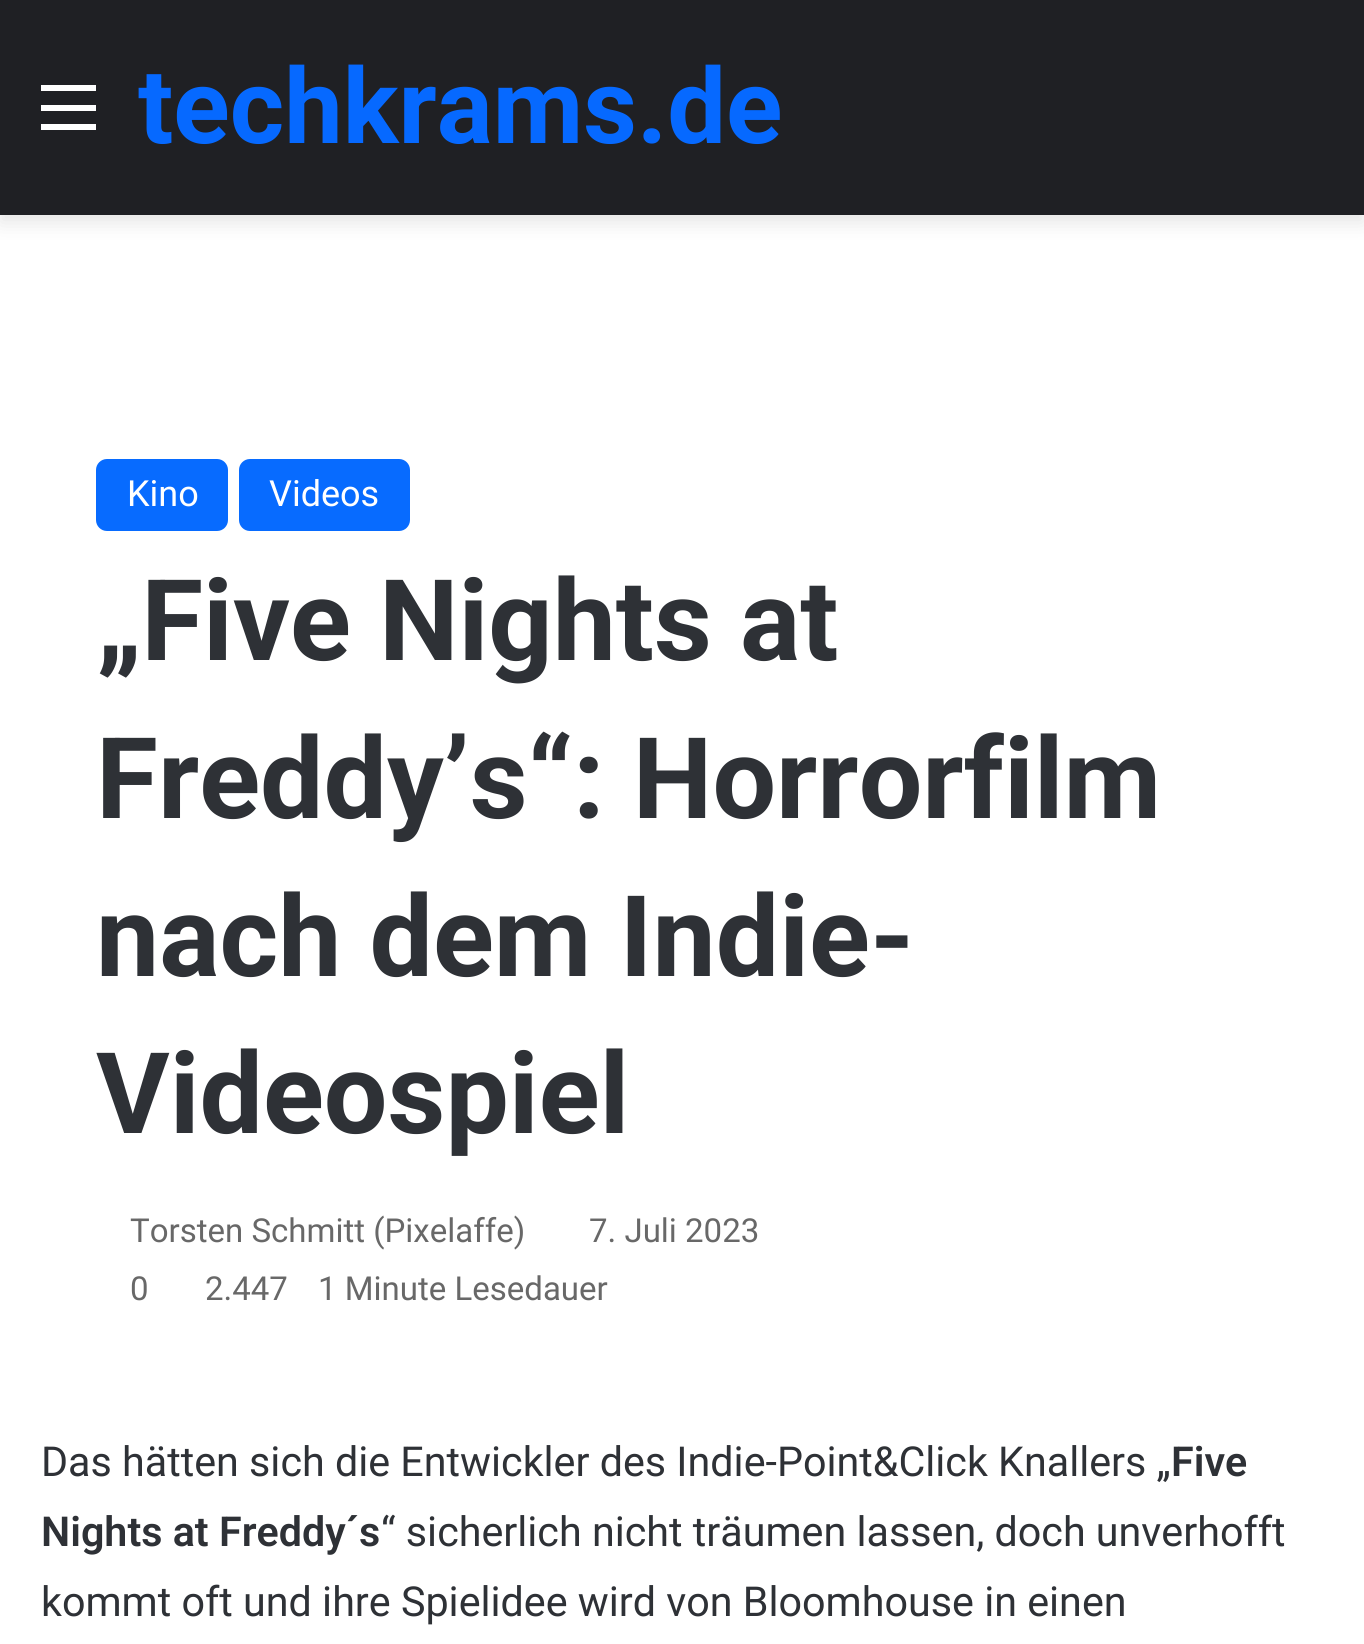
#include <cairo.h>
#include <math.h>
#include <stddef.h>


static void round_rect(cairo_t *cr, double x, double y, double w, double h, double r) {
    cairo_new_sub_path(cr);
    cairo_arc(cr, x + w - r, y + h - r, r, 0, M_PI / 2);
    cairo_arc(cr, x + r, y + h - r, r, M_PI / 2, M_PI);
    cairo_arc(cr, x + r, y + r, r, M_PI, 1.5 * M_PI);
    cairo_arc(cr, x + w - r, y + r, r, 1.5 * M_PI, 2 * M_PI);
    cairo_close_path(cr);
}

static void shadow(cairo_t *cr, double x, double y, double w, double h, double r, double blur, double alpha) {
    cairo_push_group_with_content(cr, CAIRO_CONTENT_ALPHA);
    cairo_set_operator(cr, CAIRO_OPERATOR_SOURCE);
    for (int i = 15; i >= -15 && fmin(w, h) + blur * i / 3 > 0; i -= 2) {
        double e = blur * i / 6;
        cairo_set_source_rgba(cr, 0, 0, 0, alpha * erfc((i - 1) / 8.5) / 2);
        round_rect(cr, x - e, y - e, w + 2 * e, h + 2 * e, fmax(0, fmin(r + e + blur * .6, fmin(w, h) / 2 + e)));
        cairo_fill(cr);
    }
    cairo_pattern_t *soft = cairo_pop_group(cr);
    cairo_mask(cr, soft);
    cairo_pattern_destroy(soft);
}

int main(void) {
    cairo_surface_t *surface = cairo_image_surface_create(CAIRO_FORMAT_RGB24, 1364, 1644);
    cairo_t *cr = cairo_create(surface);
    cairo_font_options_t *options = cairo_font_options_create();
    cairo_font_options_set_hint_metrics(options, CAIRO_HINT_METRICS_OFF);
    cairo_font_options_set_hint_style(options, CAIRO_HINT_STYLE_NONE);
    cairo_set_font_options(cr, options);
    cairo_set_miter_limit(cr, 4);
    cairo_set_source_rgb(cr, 1, 1, 1);
    cairo_paint(cr);
    cairo_set_source_rgb(cr, 0, 0, 0);
    shadow(cr, 0, 8, 1364, 215, 0, 9.5, 0.1);
    cairo_set_source_rgb(cr, 0.122, 0.125, 0.141);
    cairo_rectangle(cr, 0, 0, 1364, 215);
    cairo_fill(cr);
    cairo_set_source_rgb(cr, 1, 1, 1);
    cairo_rectangle(cr, 41, 105, 55, 6);
    cairo_fill(cr);
    cairo_rectangle(cr, 41, 85, 55, 6);
    cairo_fill(cr);
    cairo_rectangle(cr, 41, 124, 55, 6);
    cairo_fill(cr);
    cairo_select_font_face(cr, "Roboto", CAIRO_FONT_SLANT_NORMAL, CAIRO_FONT_WEIGHT_BOLD);
    cairo_set_font_size(cr, 104.5);
    cairo_set_source_rgb(cr, 0.024, 0.412, 1);
    cairo_move_to(cr, 138, 143);
    cairo_show_text(cr, "techkrams.de");
    cairo_set_source_rgb(cr, 0.031, 0.42, 1);
    round_rect(cr, 96, 459, 132, 72, 11);
    cairo_fill(cr);
    cairo_select_font_face(cr, "Roboto", CAIRO_FONT_SLANT_NORMAL, CAIRO_FONT_WEIGHT_NORMAL);
    cairo_set_font_size(cr, 36);
    cairo_set_source_rgb(cr, 1, 1, 1);
    cairo_move_to(cr, 127, 506);
    cairo_show_text(cr, "Kino");
    cairo_set_source_rgb(cr, 0.031, 0.42, 1);
    round_rect(cr, 239, 459, 171, 72, 11);
    cairo_fill(cr);
    cairo_set_source_rgb(cr, 1, 1, 1);
    cairo_move_to(cr, 269, 506);
    cairo_show_text(cr, "Videos");
    cairo_select_font_face(cr, "Roboto", CAIRO_FONT_SLANT_NORMAL, CAIRO_FONT_WEIGHT_BOLD);
    cairo_set_font_size(cr, 112.75);
    cairo_set_source_rgb(cr, 0.18, 0.192, 0.212);
    cairo_move_to(cr, 96, 660);
    cairo_show_text(cr, "„Five Nights at");
    cairo_move_to(cr, 96, 818);
    cairo_show_text(cr, "Freddy’s“: Horrorfilm");
    cairo_move_to(cr, 96, 976);
    cairo_show_text(cr, "nach dem Indie-");
    cairo_move_to(cr, 96, 1133);
    cairo_show_text(cr, "Videospiel");
    cairo_select_font_face(cr, "Roboto", CAIRO_FONT_SLANT_NORMAL, CAIRO_FONT_WEIGHT_NORMAL);
    cairo_set_font_size(cr, 33);
    cairo_set_source_rgb(cr, 0.408, 0.408, 0.408);
    cairo_move_to(cr, 130, 1242);
    cairo_show_text(cr, "Torsten Schmitt (Pixelaffe)");
    cairo_move_to(cr, 589, 1242);
    cairo_show_text(cr, "7. Juli 2023");
    cairo_move_to(cr, 130, 1300);
    cairo_show_text(cr, "0");
    cairo_move_to(cr, 205, 1300);
    cairo_show_text(cr, "2.447");
    cairo_move_to(cr, 318, 1300);
    cairo_show_text(cr, "1 Minute Lesedauer");
    cairo_set_font_size(cr, 41.25);
    cairo_set_source_rgb(cr, 0.18, 0.192, 0.212);
    cairo_move_to(cr, 41, 1476);
    cairo_show_text(cr, "Das hätten sich die Entwickler des Indie-Point&Click Knallers „");
    cairo_select_font_face(cr, "Roboto SemiBold", CAIRO_FONT_SLANT_NORMAL, CAIRO_FONT_WEIGHT_NORMAL);
    cairo_move_to(cr, 1171, 1476);
    cairo_show_text(cr, "Five");
    cairo_move_to(cr, 41, 1546);
    cairo_show_text(cr, "Nights at Freddy´s");
    cairo_select_font_face(cr, "Roboto", CAIRO_FONT_SLANT_NORMAL, CAIRO_FONT_WEIGHT_NORMAL);
    cairo_move_to(cr, 381, 1546);
    cairo_show_text(cr, "“ sicherlich nicht träumen lassen, doch unverhofft");
    cairo_move_to(cr, 41, 1616);
    cairo_show_text(cr, "kommt oft und ihre Spielidee wird von Bloomhouse in einen");
    cairo_surface_write_to_png(surface, "page.png");
    cairo_font_options_destroy(options);
    cairo_destroy(cr);
    cairo_surface_destroy(surface);
    return 0;
}
